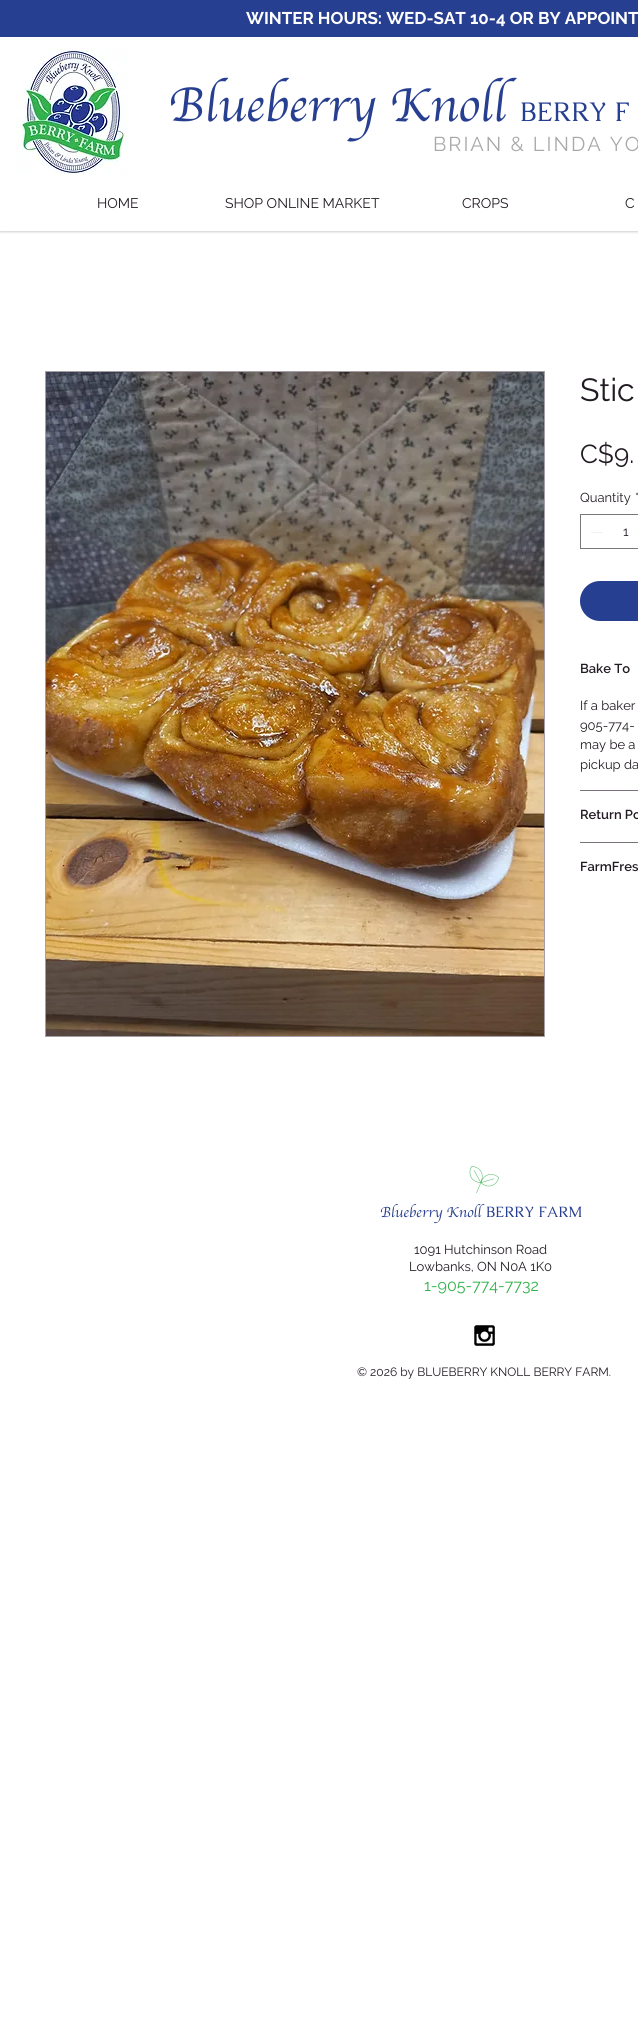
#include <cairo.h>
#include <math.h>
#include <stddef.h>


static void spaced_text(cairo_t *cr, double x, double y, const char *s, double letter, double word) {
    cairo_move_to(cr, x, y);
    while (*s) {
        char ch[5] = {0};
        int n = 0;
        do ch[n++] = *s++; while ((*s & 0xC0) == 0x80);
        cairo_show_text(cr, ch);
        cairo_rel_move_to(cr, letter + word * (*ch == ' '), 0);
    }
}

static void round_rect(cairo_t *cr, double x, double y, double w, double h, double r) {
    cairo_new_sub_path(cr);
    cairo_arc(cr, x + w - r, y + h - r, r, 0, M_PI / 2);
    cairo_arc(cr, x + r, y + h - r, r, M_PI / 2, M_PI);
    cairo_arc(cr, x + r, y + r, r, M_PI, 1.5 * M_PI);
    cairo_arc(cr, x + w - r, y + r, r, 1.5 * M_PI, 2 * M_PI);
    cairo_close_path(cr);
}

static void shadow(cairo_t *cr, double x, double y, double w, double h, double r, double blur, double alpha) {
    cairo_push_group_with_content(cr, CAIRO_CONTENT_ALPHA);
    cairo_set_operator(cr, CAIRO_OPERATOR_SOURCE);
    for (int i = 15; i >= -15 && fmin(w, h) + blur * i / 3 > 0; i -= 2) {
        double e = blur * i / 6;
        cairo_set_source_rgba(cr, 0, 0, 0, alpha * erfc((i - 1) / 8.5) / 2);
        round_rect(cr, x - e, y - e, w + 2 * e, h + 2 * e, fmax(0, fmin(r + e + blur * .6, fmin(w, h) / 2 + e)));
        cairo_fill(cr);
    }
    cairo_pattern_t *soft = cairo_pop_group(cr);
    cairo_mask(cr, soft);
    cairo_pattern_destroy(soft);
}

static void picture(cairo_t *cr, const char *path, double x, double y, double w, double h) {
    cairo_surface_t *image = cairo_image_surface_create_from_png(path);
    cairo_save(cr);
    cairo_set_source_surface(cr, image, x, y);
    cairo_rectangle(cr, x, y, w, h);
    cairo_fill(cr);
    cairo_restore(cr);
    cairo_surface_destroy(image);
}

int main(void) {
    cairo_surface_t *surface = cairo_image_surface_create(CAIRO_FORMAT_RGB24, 638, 2027);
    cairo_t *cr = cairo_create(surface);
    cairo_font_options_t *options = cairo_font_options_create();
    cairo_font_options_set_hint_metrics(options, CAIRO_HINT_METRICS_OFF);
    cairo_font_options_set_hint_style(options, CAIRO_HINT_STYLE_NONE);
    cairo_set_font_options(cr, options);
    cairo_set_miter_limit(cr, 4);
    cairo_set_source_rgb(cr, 1, 1, 1);
    cairo_paint(cr);
    cairo_save(cr);
    cairo_rectangle(cr, 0, 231, 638, 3);
    cairo_clip(cr);
    cairo_set_source_rgb(cr, 0, 0, 0);
    shadow(cr, 0, -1, 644, 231, 0, 2, 0.6);
    cairo_restore(cr);
    cairo_set_source_rgb(cr, 0.153, 0.247, 0.565);
    cairo_rectangle(cr, 0, 0, 638, 37);
    cairo_fill(cr);
    cairo_select_font_face(cr, "Raleway", CAIRO_FONT_SLANT_NORMAL, CAIRO_FONT_WEIGHT_BOLD);
    cairo_set_font_size(cr, 17);
    cairo_set_source_rgb(cr, 1, 1, 1);
    cairo_move_to(cr, 246, 24);
    cairo_show_text(cr, "WINTER HOURS: WED-SAT 10-4 OR BY APPOINT");
    picture(cr, "img1.png", 16, 48, 112, 126);
    cairo_select_font_face(cr, "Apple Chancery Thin", CAIRO_FONT_SLANT_NORMAL, CAIRO_FONT_WEIGHT_NORMAL);
    cairo_set_font_size(cr, 50);
    cairo_set_source_rgb(cr, 0.153, 0.247, 0.565);
    cairo_move_to(cr, 168, 121);
    cairo_show_text(cr, "Blueberry Knoll");
    cairo_select_font_face(cr, "Caudex", CAIRO_FONT_SLANT_NORMAL, CAIRO_FONT_WEIGHT_NORMAL);
    cairo_set_font_size(cr, 27);
    cairo_move_to(cr, 520, 121);
    cairo_show_text(cr, "BERRY F");
    cairo_select_font_face(cr, "Raleway", CAIRO_FONT_SLANT_NORMAL, CAIRO_FONT_WEIGHT_NORMAL);
    cairo_set_font_size(cr, 20);
    cairo_set_source_rgb(cr, 0.663, 0.663, 0.663);
    spaced_text(cr, 433, 151, "BRIAN & LINDA YO", 2, 0);
    cairo_set_font_size(cr, 14);
    cairo_set_source_rgb(cr, 0.133, 0.106, 0.137);
    cairo_move_to(cr, 97, 208);
    cairo_show_text(cr, "HOME");
    cairo_move_to(cr, 225, 208);
    cairo_show_text(cr, "SHOP ONLINE MARKET");
    cairo_move_to(cr, 462, 208);
    cairo_show_text(cr, "CROPS");
    cairo_move_to(cr, 625, 208);
    cairo_show_text(cr, "C");
    cairo_rectangle(cr, 45.5, 371.5, 499, 665);
    cairo_set_source_rgb(cr, 0.651, 0.62, 0.655);
    cairo_set_line_width(cr, 1);
    cairo_stroke(cr);
    picture(cr, "img2.png", 46, 372, 498, 664);
    cairo_set_font_size(cr, 32);
    cairo_set_source_rgb(cr, 0.133, 0.106, 0.137);
    cairo_move_to(cr, 580, 401);
    cairo_show_text(cr, "Stic");
    cairo_set_font_size(cr, 26);
    cairo_move_to(cr, 580, 463);
    cairo_show_text(cr, "C$9.");
    cairo_set_font_size(cr, 13);
    cairo_move_to(cr, 580, 502);
    cairo_show_text(cr, "Quantity");
    cairo_move_to(cr, 635, 502);
    cairo_show_text(cr, "*");
    cairo_rectangle(cr, 580.5, 514.5, 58, 34);
    cairo_set_source_rgb(cr, 0.478, 0.463, 0.482);
    cairo_stroke(cr);
    cairo_set_source_rgb(cr, 0.89, 0.89, 0.89);
    cairo_set_fill_rule(cr, CAIRO_FILL_RULE_EVEN_ODD);
    cairo_new_path(cr);
    cairo_move_to(cr, 603, 532);
    cairo_line_to(cr, 603, 532.5);
    cairo_line_to(cr, 591, 532.5);
    cairo_line_to(cr, 591, 532);
    cairo_close_path(cr);
    cairo_fill(cr);
    cairo_set_source_rgb(cr, 0.133, 0.106, 0.137);
    cairo_move_to(cr, 623, 536);
    cairo_show_text(cr, "1");
    cairo_set_source_rgb(cr, 0.153, 0.247, 0.565);
    round_rect(cr, 580, 581, 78, 40, 20);
    cairo_fill(cr);
    cairo_set_source_rgb(cr, 0.478, 0.447, 0.482);
    cairo_rectangle(cr, 580, 790, 58, 1);
    cairo_fill(cr);
    cairo_select_font_face(cr, "Raleway SemiBold", CAIRO_FONT_SLANT_NORMAL, CAIRO_FONT_WEIGHT_NORMAL);
    cairo_set_source_rgb(cr, 0.133, 0.106, 0.137);
    cairo_move_to(cr, 580, 673);
    cairo_show_text(cr, "Bake To");
    cairo_select_font_face(cr, "Raleway", CAIRO_FONT_SLANT_NORMAL, CAIRO_FONT_WEIGHT_NORMAL);
    cairo_move_to(cr, 580, 710);
    cairo_show_text(cr, "If a baker");
    cairo_move_to(cr, 580, 730);
    cairo_show_text(cr, "905-774-");
    cairo_move_to(cr, 580, 749);
    cairo_show_text(cr, "may be a");
    cairo_move_to(cr, 580, 769);
    cairo_show_text(cr, "pickup da");
    cairo_set_source_rgb(cr, 0.478, 0.447, 0.482);
    cairo_rectangle(cr, 580, 842, 58, 1);
    cairo_fill(cr);
    cairo_select_font_face(cr, "Raleway SemiBold", CAIRO_FONT_SLANT_NORMAL, CAIRO_FONT_WEIGHT_NORMAL);
    cairo_set_source_rgb(cr, 0.133, 0.106, 0.137);
    cairo_move_to(cr, 580, 819);
    cairo_show_text(cr, "Return Po");
    cairo_move_to(cr, 580, 871);
    cairo_show_text(cr, "FarmFres");
    picture(cr, "img3.png", 469, 1166, 30, 27);
    cairo_select_font_face(cr, "Apple Chancery Thin", CAIRO_FONT_SLANT_NORMAL, CAIRO_FONT_WEIGHT_NORMAL);
    cairo_set_font_size(cr, 15);
    cairo_set_source_rgb(cr, 0.153, 0.247, 0.565);
    cairo_move_to(cr, 380, 1217);
    cairo_show_text(cr, "Blueberry Knoll");
    cairo_select_font_face(cr, "Caudex", CAIRO_FONT_SLANT_NORMAL, CAIRO_FONT_WEIGHT_NORMAL);
    cairo_move_to(cr, 486, 1217);
    cairo_show_text(cr, "BERRY FARM");
    cairo_select_font_face(cr, "Raleway", CAIRO_FONT_SLANT_NORMAL, CAIRO_FONT_WEIGHT_NORMAL);
    cairo_set_font_size(cr, 13);
    cairo_set_source_rgb(cr, 0.133, 0.106, 0.137);
    cairo_move_to(cr, 414, 1254);
    cairo_show_text(cr, "1091 Hutchinson Road");
    cairo_move_to(cr, 409, 1271);
    cairo_show_text(cr, "Lowbanks, ON N0A 1K0");
    cairo_set_font_size(cr, 16);
    cairo_set_source_rgb(cr, 0.2, 0.698, 0.294);
    cairo_move_to(cr, 424, 1291);
    cairo_show_text(cr, "1-905-774-7732");
    picture(cr, "img4.png", 474, 1325, 21, 21);
    cairo_set_font_size(cr, 12);
    cairo_set_source_rgb(cr, 0.133, 0.106, 0.137);
    cairo_move_to(cr, 357, 1376);
    cairo_show_text(cr, "© 2026 by BLUEBERRY KNOLL BERRY FARM.");
    cairo_surface_write_to_png(surface, "page.png");
    cairo_font_options_destroy(options);
    cairo_destroy(cr);
    cairo_surface_destroy(surface);
    return 0;
}
